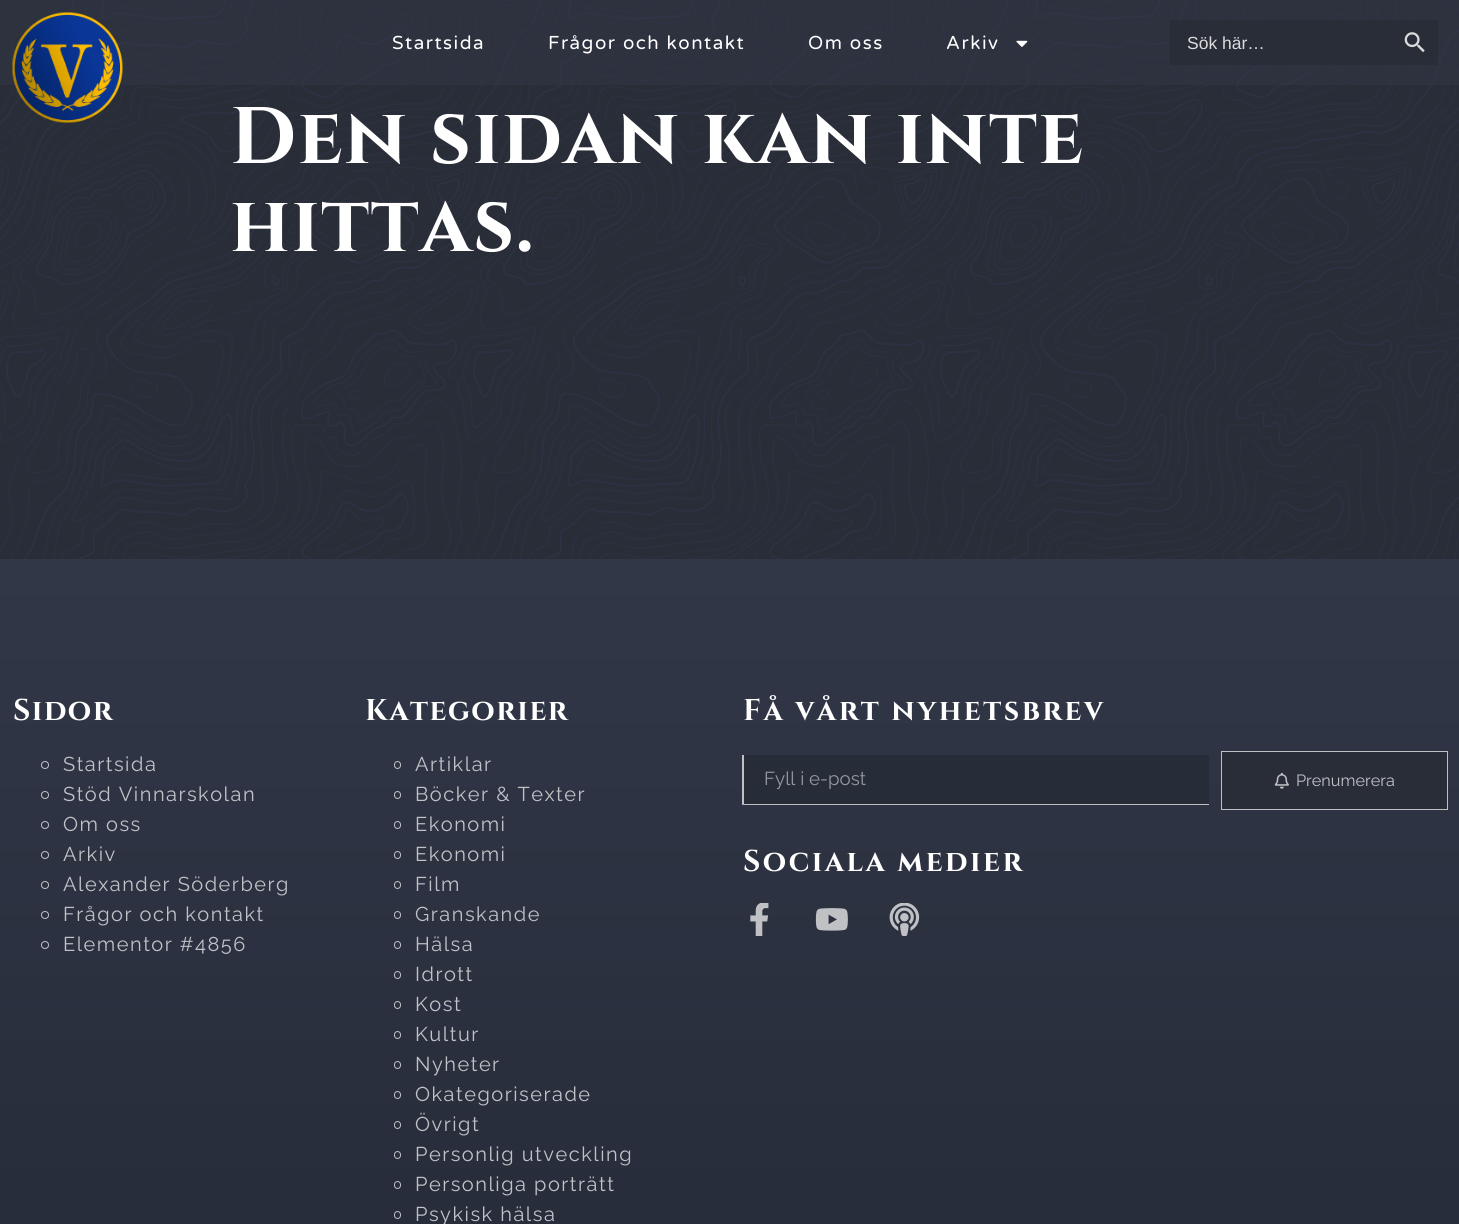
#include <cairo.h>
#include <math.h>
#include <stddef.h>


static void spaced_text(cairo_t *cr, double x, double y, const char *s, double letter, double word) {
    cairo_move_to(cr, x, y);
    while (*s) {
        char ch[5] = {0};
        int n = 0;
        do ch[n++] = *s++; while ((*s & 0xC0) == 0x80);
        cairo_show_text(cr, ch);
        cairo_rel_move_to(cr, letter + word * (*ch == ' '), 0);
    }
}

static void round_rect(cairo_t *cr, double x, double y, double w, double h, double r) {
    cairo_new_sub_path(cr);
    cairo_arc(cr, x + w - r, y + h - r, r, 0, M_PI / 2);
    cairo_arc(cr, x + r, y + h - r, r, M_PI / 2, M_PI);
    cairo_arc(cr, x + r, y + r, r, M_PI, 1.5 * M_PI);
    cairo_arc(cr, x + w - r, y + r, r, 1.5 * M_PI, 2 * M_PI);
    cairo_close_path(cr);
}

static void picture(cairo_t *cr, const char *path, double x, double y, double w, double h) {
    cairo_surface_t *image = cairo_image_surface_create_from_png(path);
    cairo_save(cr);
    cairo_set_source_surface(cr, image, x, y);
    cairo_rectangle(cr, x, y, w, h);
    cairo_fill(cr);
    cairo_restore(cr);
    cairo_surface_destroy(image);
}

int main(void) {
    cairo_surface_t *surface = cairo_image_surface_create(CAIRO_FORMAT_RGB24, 1459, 1224);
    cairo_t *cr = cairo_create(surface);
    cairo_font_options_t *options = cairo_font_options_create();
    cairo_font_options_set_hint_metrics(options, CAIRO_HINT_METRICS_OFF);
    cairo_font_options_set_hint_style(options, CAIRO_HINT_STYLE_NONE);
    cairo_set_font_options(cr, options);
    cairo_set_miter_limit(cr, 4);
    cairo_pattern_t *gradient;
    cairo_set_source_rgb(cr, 1, 1, 1);
    cairo_paint(cr);
    picture(cr, "img1.png", 0, 0, 1459, 559);
    cairo_set_source_rgba(cr, 0.216, 0.239, 0.306, 0.3);
    cairo_rectangle(cr, 0, 0, 1459, 85);
    cairo_fill(cr);
    picture(cr, "img2.png", 12, 12, 111, 111);
    cairo_select_font_face(cr, "Varela Round", CAIRO_FONT_SLANT_NORMAL, CAIRO_FONT_WEIGHT_NORMAL);
    cairo_set_font_size(cr, 18.75);
    cairo_set_source_rgb(cr, 1, 1, 1);
    spaced_text(cr, 392, 49, "Startsida", 1.5, 0);
    spaced_text(cr, 548, 49, "Frågor och kontakt", 1.5, 0);
    spaced_text(cr, 808, 49, "Om oss", 1.5, 0);
    spaced_text(cr, 946, 49, "Arkiv", 1.5, 0);
    picture(cr, "img3.png", 1016, 40, 12, 7);
    cairo_set_source_rgb(cr, 0.161, 0.176, 0.22);
    cairo_rectangle(cr, 1170, 20, 268, 45);
    cairo_fill(cr);
    picture(cr, "img4.png", 1404, 32, 21, 21);
    cairo_select_font_face(cr, "Liberation Sans", CAIRO_FONT_SLANT_NORMAL, CAIRO_FONT_WEIGHT_NORMAL);
    cairo_set_font_size(cr, 17.5);
    cairo_set_source_rgb(cr, 0.859, 0.859, 0.859);
    cairo_move_to(cr, 1187, 49);
    cairo_show_text(cr, "Sök här…");
    cairo_select_font_face(cr, "Cinzel", CAIRO_FONT_SLANT_NORMAL, CAIRO_FONT_WEIGHT_BOLD);
    cairo_set_font_size(cr, 80);
    cairo_set_source_rgb(cr, 1, 1, 1);
    spaced_text(cr, 230, 163, "Den sidan kan inte", 1.5, 0);
    spaced_text(cr, 230, 251, "hittas.", 1.5, 0);
    gradient = cairo_pattern_create_linear(730, 559, 730, 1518);
    cairo_pattern_add_color_stop_rgba(gradient, 0, 0.192, 0.216, 0.278, 1);
    cairo_pattern_add_color_stop_rgba(gradient, 1, 0.137, 0.157, 0.208, 1);
    cairo_set_source(cr, gradient);
    cairo_pattern_destroy(gradient);
    cairo_rectangle(cr, 0, 559, 1459, 665);
    cairo_fill(cr);
    cairo_set_font_size(cr, 30);
    cairo_set_source_rgb(cr, 1, 1, 1);
    spaced_text(cr, 13, 720, "Sidor", 1.5, 0);
    cairo_new_path(cr);
    cairo_arc(cr, 45, 765, 3.5, 0, 2 * M_PI);
    cairo_set_source_rgb(cr, 0.753, 0.761, 0.78);
    cairo_set_line_width(cr, 1);
    cairo_stroke(cr);
    cairo_select_font_face(cr, "Raleway", CAIRO_FONT_SLANT_NORMAL, CAIRO_FONT_WEIGHT_NORMAL);
    cairo_set_font_size(cr, 20);
    spaced_text(cr, 63, 771, "Startsida", 1.5, 0);
    cairo_new_path(cr);
    cairo_arc(cr, 45, 795, 3.5, 0, 2 * M_PI);
    cairo_stroke(cr);
    spaced_text(cr, 63, 801, "Stöd Vinnarskolan", 1.5, 0);
    cairo_new_path(cr);
    cairo_arc(cr, 45, 825, 3.5, 0, 2 * M_PI);
    cairo_set_source_rgb(cr, 0.753, 0.761, 0.776);
    cairo_stroke(cr);
    cairo_set_source_rgb(cr, 0.753, 0.761, 0.78);
    spaced_text(cr, 63, 831, "Om oss", 1.5, 0);
    cairo_new_path(cr);
    cairo_arc(cr, 45, 855, 3.5, 0, 2 * M_PI);
    cairo_set_source_rgb(cr, 0.753, 0.761, 0.776);
    cairo_stroke(cr);
    cairo_set_source_rgb(cr, 0.753, 0.761, 0.78);
    spaced_text(cr, 63, 861, "Arkiv", 1.5, 0);
    cairo_new_path(cr);
    cairo_arc(cr, 45, 885, 3.5, 0, 2 * M_PI);
    cairo_set_source_rgb(cr, 0.753, 0.761, 0.776);
    cairo_stroke(cr);
    cairo_set_source_rgb(cr, 0.753, 0.761, 0.78);
    spaced_text(cr, 63, 891, "Alexander Söderberg", 1.5, 0);
    cairo_new_path(cr);
    cairo_arc(cr, 45, 915, 3.5, 0, 2 * M_PI);
    cairo_set_source_rgb(cr, 0.753, 0.757, 0.776);
    cairo_stroke(cr);
    cairo_set_source_rgb(cr, 0.753, 0.761, 0.78);
    spaced_text(cr, 63, 921, "Frågor och kontakt", 1.5, 0);
    cairo_new_path(cr);
    cairo_arc(cr, 45, 945, 3.5, 0, 2 * M_PI);
    cairo_set_source_rgb(cr, 0.749, 0.757, 0.776);
    cairo_stroke(cr);
    cairo_set_source_rgb(cr, 0.753, 0.761, 0.78);
    spaced_text(cr, 63, 951, "Elementor #4856", 1.5, 0);
    cairo_select_font_face(cr, "Cinzel", CAIRO_FONT_SLANT_NORMAL, CAIRO_FONT_WEIGHT_BOLD);
    cairo_set_font_size(cr, 30);
    cairo_set_source_rgb(cr, 1, 1, 1);
    spaced_text(cr, 365, 720, "Kategorier", 1.5, 0);
    round_rect(cr, 394.5, 761.5, 6, 7, 3);
    cairo_set_source_rgb(cr, 0.753, 0.761, 0.78);
    cairo_stroke(cr);
    cairo_select_font_face(cr, "Raleway", CAIRO_FONT_SLANT_NORMAL, CAIRO_FONT_WEIGHT_NORMAL);
    cairo_set_font_size(cr, 20);
    spaced_text(cr, 415, 771, "Artiklar", 1.5, 0);
    round_rect(cr, 394.5, 791.5, 6, 7, 3);
    cairo_stroke(cr);
    spaced_text(cr, 415, 801, "Böcker & Texter", 1.5, 0);
    round_rect(cr, 394.5, 821.5, 6, 7, 3);
    cairo_set_source_rgb(cr, 0.753, 0.761, 0.776);
    cairo_stroke(cr);
    cairo_set_source_rgb(cr, 0.753, 0.761, 0.78);
    spaced_text(cr, 415, 831, "Ekonomi", 1.5, 0);
    round_rect(cr, 394.5, 851.5, 6, 7, 3);
    cairo_set_source_rgb(cr, 0.753, 0.761, 0.776);
    cairo_stroke(cr);
    cairo_set_source_rgb(cr, 0.753, 0.761, 0.78);
    spaced_text(cr, 415, 861, "Ekonomi", 1.5, 0);
    round_rect(cr, 394.5, 881.5, 6, 7, 3);
    cairo_set_source_rgb(cr, 0.753, 0.761, 0.776);
    cairo_stroke(cr);
    cairo_set_source_rgb(cr, 0.753, 0.761, 0.78);
    spaced_text(cr, 415, 891, "Film", 1.5, 0);
    round_rect(cr, 394.5, 911.5, 6, 7, 3);
    cairo_set_source_rgb(cr, 0.753, 0.757, 0.776);
    cairo_stroke(cr);
    cairo_set_source_rgb(cr, 0.753, 0.761, 0.78);
    spaced_text(cr, 415, 921, "Granskande", 1.5, 0);
    round_rect(cr, 394.5, 941.5, 6, 7, 3);
    cairo_set_source_rgb(cr, 0.749, 0.757, 0.776);
    cairo_stroke(cr);
    cairo_set_source_rgb(cr, 0.753, 0.761, 0.78);
    spaced_text(cr, 415, 951, "Hälsa", 1.5, 0);
    round_rect(cr, 394.5, 971.5, 6, 7, 3);
    cairo_set_source_rgb(cr, 0.749, 0.757, 0.773);
    cairo_stroke(cr);
    cairo_set_source_rgb(cr, 0.753, 0.761, 0.78);
    spaced_text(cr, 415, 981, "Idrott", 1.5, 0);
    round_rect(cr, 394.5, 1001.5, 6, 7, 3);
    cairo_set_source_rgb(cr, 0.749, 0.757, 0.773);
    cairo_stroke(cr);
    cairo_set_source_rgb(cr, 0.753, 0.761, 0.78);
    spaced_text(cr, 415, 1011, "Kost", 1.5, 0);
    round_rect(cr, 394.5, 1031.5, 6, 7, 3);
    cairo_set_source_rgb(cr, 0.749, 0.757, 0.773);
    cairo_stroke(cr);
    cairo_set_source_rgb(cr, 0.753, 0.761, 0.78);
    spaced_text(cr, 415, 1041, "Kultur", 1.5, 0);
    round_rect(cr, 394.5, 1061.5, 6, 7, 3);
    cairo_set_source_rgb(cr, 0.749, 0.757, 0.773);
    cairo_stroke(cr);
    cairo_set_source_rgb(cr, 0.753, 0.761, 0.78);
    spaced_text(cr, 415, 1071, "Nyheter", 1.5, 0);
    round_rect(cr, 394.5, 1091.5, 6, 7, 3);
    cairo_set_source_rgb(cr, 0.749, 0.757, 0.773);
    cairo_stroke(cr);
    cairo_set_source_rgb(cr, 0.753, 0.761, 0.78);
    spaced_text(cr, 415, 1101, "Okategoriserade", 1.5, 0);
    round_rect(cr, 394.5, 1121.5, 6, 7, 3);
    cairo_set_source_rgb(cr, 0.749, 0.753, 0.773);
    cairo_stroke(cr);
    cairo_set_source_rgb(cr, 0.753, 0.761, 0.78);
    spaced_text(cr, 415, 1131, "Övrigt", 1.5, 0);
    round_rect(cr, 394.5, 1151.5, 6, 7, 3);
    cairo_set_source_rgb(cr, 0.749, 0.753, 0.773);
    cairo_stroke(cr);
    cairo_set_source_rgb(cr, 0.753, 0.761, 0.78);
    spaced_text(cr, 415, 1161, "Personlig utveckling", 1.5, 0);
    round_rect(cr, 394.5, 1181.5, 6, 7, 3);
    cairo_set_source_rgb(cr, 0.749, 0.753, 0.769);
    cairo_stroke(cr);
    cairo_set_source_rgb(cr, 0.753, 0.761, 0.78);
    spaced_text(cr, 415, 1191, "Personliga porträtt", 1.5, 0);
    round_rect(cr, 394.5, 1211.5, 6, 7, 3);
    cairo_set_source_rgb(cr, 0.745, 0.753, 0.769);
    cairo_stroke(cr);
    cairo_set_source_rgb(cr, 0.753, 0.761, 0.78);
    spaced_text(cr, 415, 1221, "Psykisk hälsa", 1.5, 0);
    cairo_select_font_face(cr, "Cinzel", CAIRO_FONT_SLANT_NORMAL, CAIRO_FONT_WEIGHT_BOLD);
    cairo_set_font_size(cr, 30);
    cairo_set_source_rgb(cr, 1, 1, 1);
    spaced_text(cr, 743, 720, "Få vårt nyhetsbrev", 2.5, 0);
    cairo_set_source_rgb(cr, 0.153, 0.173, 0.224);
    cairo_rectangle(cr, 743, 755, 466, 50);
    cairo_fill(cr);
    cairo_set_source_rgb(cr, 0.745, 0.753, 0.769);
    cairo_new_path(cr);
    cairo_move_to(cr, 1209, 805);
    cairo_line_to(cr, 742, 805);
    cairo_line_to(cr, 744, 804);
    cairo_line_to(cr, 1209, 804);
    cairo_close_path(cr);
    cairo_fill(cr);
    cairo_set_source_rgba(cr, 1, 1, 1, 0.7);
    cairo_new_path(cr);
    cairo_move_to(cr, 742, 805);
    cairo_line_to(cr, 742, 755);
    cairo_line_to(cr, 744, 755);
    cairo_line_to(cr, 744, 804);
    cairo_close_path(cr);
    cairo_fill(cr);
    cairo_select_font_face(cr, "Raleway", CAIRO_FONT_SLANT_NORMAL, CAIRO_FONT_WEIGHT_NORMAL);
    cairo_set_font_size(cr, 18.75);
    cairo_set_source_rgb(cr, 0.58, 0.592, 0.616);
    cairo_move_to(cr, 764, 785);
    cairo_show_text(cr, "Fyll i e-post");
    cairo_set_source_rgb(cr, 0.161, 0.176, 0.22);
    cairo_rectangle(cr, 1221.5, 751.5, 226, 58);
    cairo_fill_preserve(cr);
    cairo_set_source_rgb(cr, 0.749, 0.753, 0.765);
    cairo_stroke(cr);
    picture(cr, "img5.png", 1274, 773, 15, 16);
    cairo_set_font_size(cr, 16.25);
    cairo_set_source_rgb(cr, 0.753, 0.761, 0.78);
    cairo_move_to(cr, 1296, 786);
    cairo_show_text(cr, "Prenumerera");
    cairo_select_font_face(cr, "Cinzel", CAIRO_FONT_SLANT_NORMAL, CAIRO_FONT_WEIGHT_BOLD);
    cairo_set_font_size(cr, 30);
    cairo_set_source_rgb(cr, 1, 1, 1);
    spaced_text(cr, 743, 871, "Sociala medier", 2.5, 0);
    picture(cr, "img6.png", 750, 903, 19, 33);
    picture(cr, "img7.png", 815, 908, 33, 23);
    picture(cr, "img8.png", 889, 903, 31, 33);
    cairo_surface_write_to_png(surface, "page.png");
    cairo_font_options_destroy(options);
    cairo_destroy(cr);
    cairo_surface_destroy(surface);
    return 0;
}
